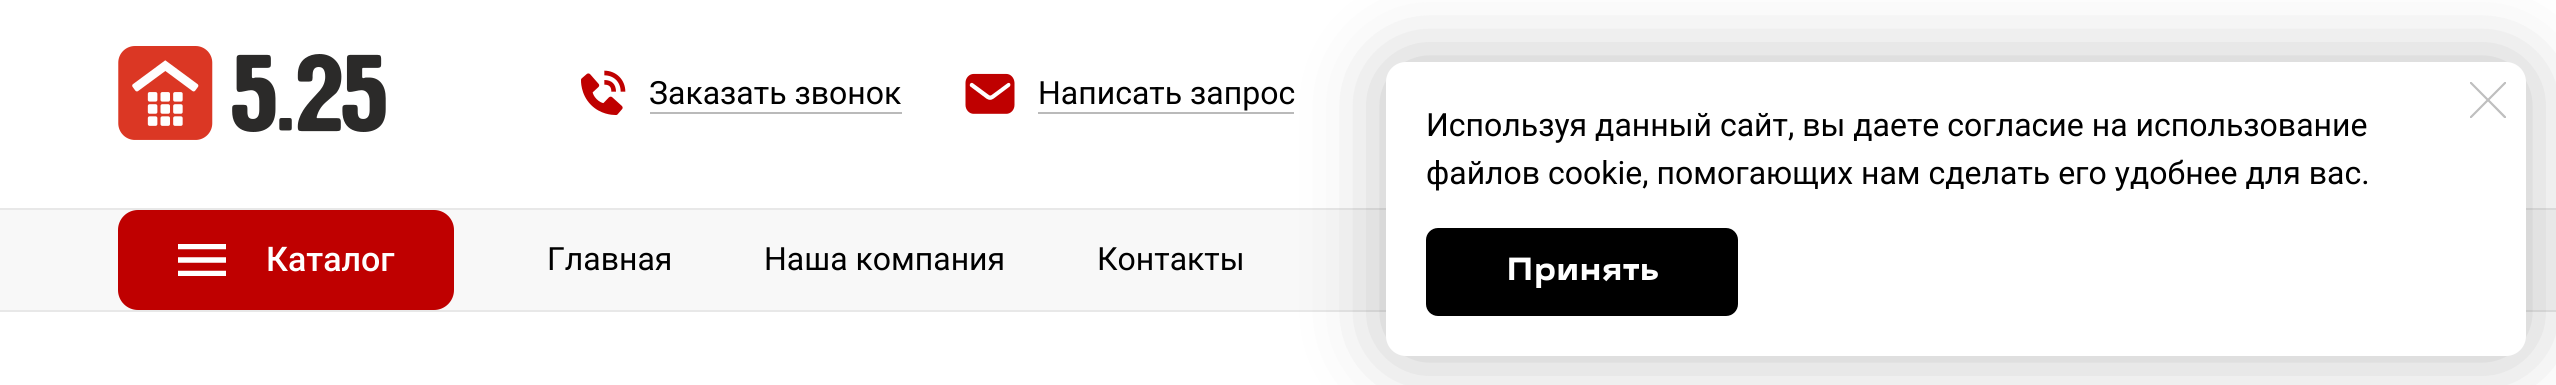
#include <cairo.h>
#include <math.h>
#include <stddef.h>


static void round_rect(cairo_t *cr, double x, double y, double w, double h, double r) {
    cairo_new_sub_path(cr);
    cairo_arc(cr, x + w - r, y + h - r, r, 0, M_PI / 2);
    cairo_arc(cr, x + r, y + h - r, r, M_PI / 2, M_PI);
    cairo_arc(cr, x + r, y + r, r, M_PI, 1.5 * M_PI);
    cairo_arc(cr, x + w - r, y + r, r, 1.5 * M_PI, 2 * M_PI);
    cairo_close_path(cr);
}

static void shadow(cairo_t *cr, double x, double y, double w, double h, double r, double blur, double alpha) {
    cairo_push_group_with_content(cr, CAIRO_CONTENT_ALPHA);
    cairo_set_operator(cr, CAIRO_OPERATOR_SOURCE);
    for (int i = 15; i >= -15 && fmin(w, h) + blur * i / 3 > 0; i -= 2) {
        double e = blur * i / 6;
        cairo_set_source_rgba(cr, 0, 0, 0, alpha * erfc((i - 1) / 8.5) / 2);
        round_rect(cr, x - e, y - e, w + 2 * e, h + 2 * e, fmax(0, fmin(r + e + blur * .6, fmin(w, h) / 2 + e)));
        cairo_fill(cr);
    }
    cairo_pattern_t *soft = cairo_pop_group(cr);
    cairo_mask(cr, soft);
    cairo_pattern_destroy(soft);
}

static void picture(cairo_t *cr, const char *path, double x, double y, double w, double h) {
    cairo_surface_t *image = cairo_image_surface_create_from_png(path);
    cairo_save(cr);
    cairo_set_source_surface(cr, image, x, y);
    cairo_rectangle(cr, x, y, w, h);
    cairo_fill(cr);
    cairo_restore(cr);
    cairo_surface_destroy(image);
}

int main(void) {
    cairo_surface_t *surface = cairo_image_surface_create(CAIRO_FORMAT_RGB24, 2556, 385);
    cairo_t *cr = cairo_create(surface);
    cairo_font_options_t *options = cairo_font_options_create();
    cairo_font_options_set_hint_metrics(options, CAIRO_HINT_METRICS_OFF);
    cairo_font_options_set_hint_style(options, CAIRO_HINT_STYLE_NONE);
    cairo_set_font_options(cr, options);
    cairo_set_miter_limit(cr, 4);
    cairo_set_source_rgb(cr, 1, 1, 1);
    cairo_paint(cr);
    picture(cr, "img1.png", 118, 46, 268, 94);
    picture(cr, "img2.png", 581, 70, 45, 45);
    cairo_select_font_face(cr, "Roboto", CAIRO_FONT_SLANT_NORMAL, CAIRO_FONT_WEIGHT_NORMAL);
    cairo_set_font_size(cr, 32);
    cairo_set_source_rgb(cr, 0, 0, 0);
    cairo_move_to(cr, 649, 104);
    cairo_show_text(cr, "Заказать звонок");
    cairo_set_source_rgb(cr, 0.729, 0.729, 0.729);
    cairo_rectangle(cr, 650, 112, 252, 2);
    cairo_fill(cr);
    picture(cr, "img3.png", 965, 73, 50, 41);
    cairo_set_source_rgb(cr, 0, 0, 0);
    cairo_move_to(cr, 1038, 104);
    cairo_show_text(cr, "Написать запрос");
    cairo_set_source_rgb(cr, 0.729, 0.729, 0.729);
    cairo_rectangle(cr, 1038, 112, 256, 2);
    cairo_fill(cr);
    cairo_set_source_rgb(cr, 0.969, 0.969, 0.969);
    cairo_rectangle(cr, 0, 210, 2556, 100);
    cairo_fill(cr);
    cairo_set_source_rgb(cr, 0.91, 0.91, 0.91);
    cairo_rectangle(cr, 0, 208, 2556, 2);
    cairo_fill(cr);
    cairo_rectangle(cr, 0, 310, 2556, 2);
    cairo_fill(cr);
    cairo_set_source_rgb(cr, 0.749, 0, 0);
    round_rect(cr, 118, 210, 336, 100, 20);
    cairo_fill(cr);
    picture(cr, "img4.png", 178, 244, 48, 32);
    cairo_select_font_face(cr, "Roboto Medium", CAIRO_FONT_SLANT_NORMAL, CAIRO_FONT_WEIGHT_NORMAL);
    cairo_set_font_size(cr, 34);
    cairo_set_source_rgb(cr, 1, 1, 1);
    cairo_move_to(cr, 266, 271);
    cairo_show_text(cr, "Каталог");
    cairo_select_font_face(cr, "Roboto", CAIRO_FONT_SLANT_NORMAL, CAIRO_FONT_WEIGHT_NORMAL);
    cairo_set_font_size(cr, 32);
    cairo_set_source_rgb(cr, 0, 0, 0);
    cairo_move_to(cr, 547, 270);
    cairo_show_text(cr, "Главная");
    cairo_move_to(cr, 764, 270);
    cairo_show_text(cr, "Наша компания");
    cairo_move_to(cr, 1097, 270);
    cairo_show_text(cr, "Контакты");
    cairo_set_source_rgb(cr, 0, 0, 0);
    shadow(cr, 1386, 62, 1140, 294, 20, 40, 0.25);
    cairo_set_source_rgb(cr, 1, 1, 1);
    round_rect(cr, 1386, 62, 1140, 294, 20);
    cairo_fill(cr);
    picture(cr, "img5.png", 2470, 82, 36, 36);
    cairo_set_source_rgb(cr, 0, 0, 0);
    cairo_move_to(cr, 1426, 136);
    cairo_show_text(cr, "Используя данный сайт, вы даете согласие на использование");
    cairo_move_to(cr, 1426, 184);
    cairo_show_text(cr, "файлов cookie, помогающих нам сделать его удобнее для вас.");
    round_rect(cr, 1426, 228, 312, 88, 12);
    cairo_fill(cr);
    cairo_select_font_face(cr, "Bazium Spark", CAIRO_FONT_SLANT_NORMAL, CAIRO_FONT_WEIGHT_BOLD);
    cairo_set_source_rgb(cr, 1, 1, 1);
    cairo_move_to(cr, 1506, 280);
    cairo_show_text(cr, "Принять");
    cairo_surface_write_to_png(surface, "page.png");
    cairo_font_options_destroy(options);
    cairo_destroy(cr);
    cairo_surface_destroy(surface);
    return 0;
}
